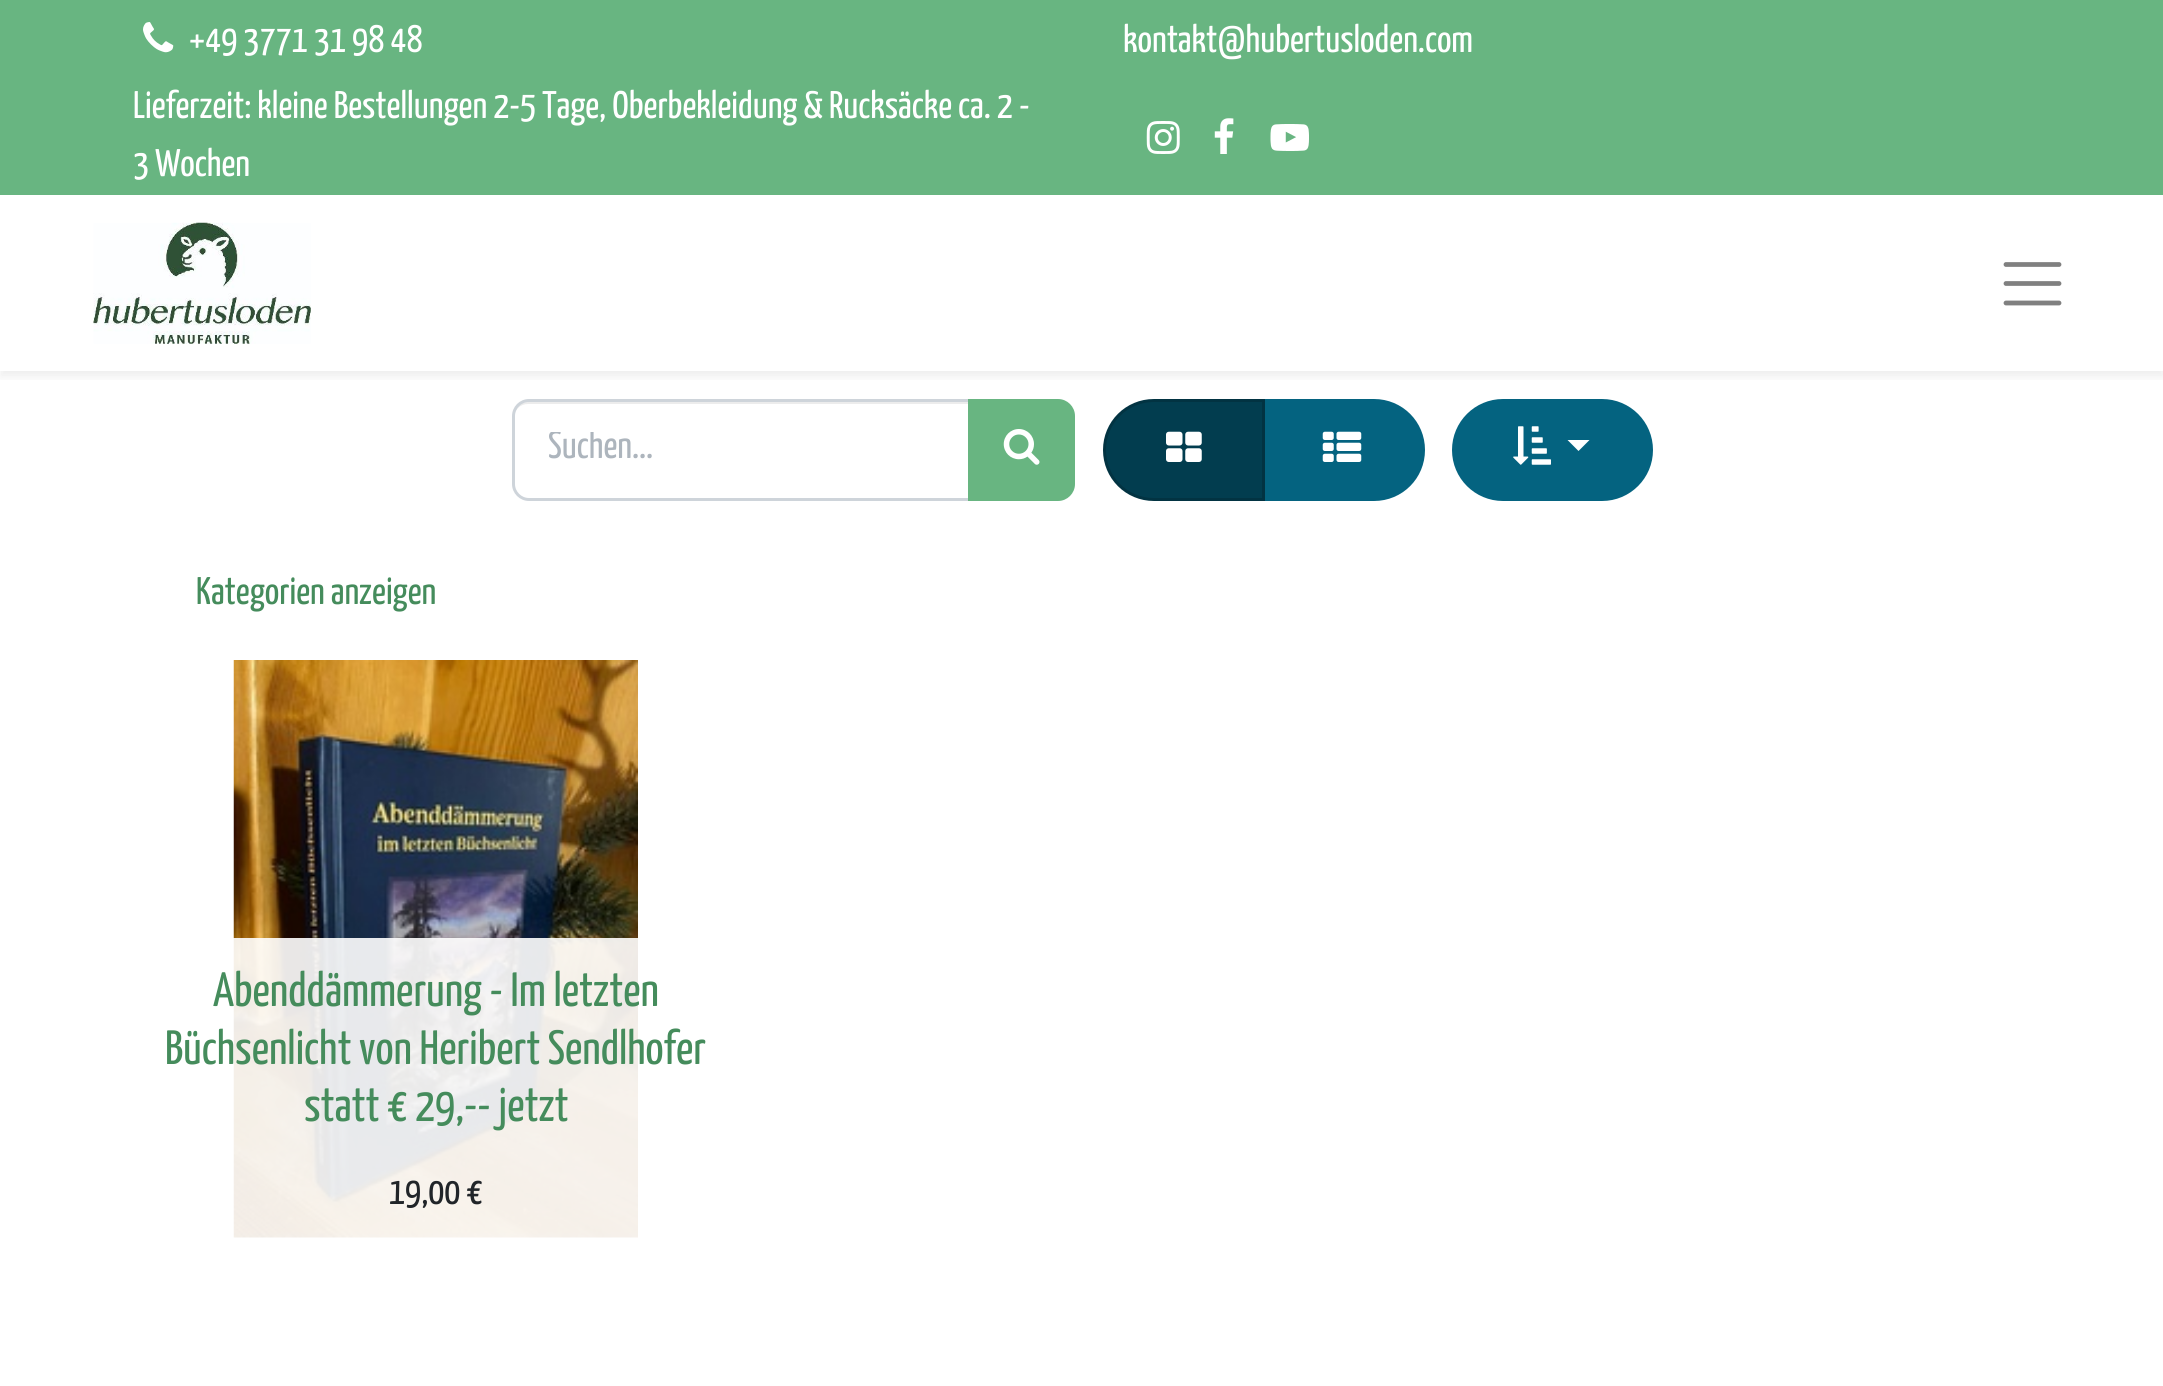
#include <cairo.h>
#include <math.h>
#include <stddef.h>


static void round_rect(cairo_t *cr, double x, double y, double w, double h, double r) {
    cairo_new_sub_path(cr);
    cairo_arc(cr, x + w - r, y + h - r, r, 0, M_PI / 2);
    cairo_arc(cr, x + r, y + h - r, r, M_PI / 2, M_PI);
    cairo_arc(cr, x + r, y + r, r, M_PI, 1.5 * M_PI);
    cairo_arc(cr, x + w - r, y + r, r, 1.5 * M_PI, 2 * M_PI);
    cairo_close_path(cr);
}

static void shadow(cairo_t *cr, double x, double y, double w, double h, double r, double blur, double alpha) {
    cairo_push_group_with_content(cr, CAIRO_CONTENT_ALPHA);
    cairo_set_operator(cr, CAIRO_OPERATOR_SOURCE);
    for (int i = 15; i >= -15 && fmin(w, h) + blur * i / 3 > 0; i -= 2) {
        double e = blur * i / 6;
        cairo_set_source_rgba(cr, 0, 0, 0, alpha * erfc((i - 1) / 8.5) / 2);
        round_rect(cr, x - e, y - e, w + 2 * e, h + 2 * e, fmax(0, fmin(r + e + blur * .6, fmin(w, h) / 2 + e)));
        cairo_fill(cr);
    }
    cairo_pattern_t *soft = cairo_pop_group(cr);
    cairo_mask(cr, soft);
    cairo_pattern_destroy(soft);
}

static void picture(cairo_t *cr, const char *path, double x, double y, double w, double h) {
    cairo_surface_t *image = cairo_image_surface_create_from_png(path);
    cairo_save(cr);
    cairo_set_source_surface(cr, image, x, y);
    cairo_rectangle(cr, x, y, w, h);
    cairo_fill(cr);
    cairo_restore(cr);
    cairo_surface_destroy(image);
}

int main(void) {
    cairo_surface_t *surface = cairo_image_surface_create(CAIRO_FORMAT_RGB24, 2163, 1386);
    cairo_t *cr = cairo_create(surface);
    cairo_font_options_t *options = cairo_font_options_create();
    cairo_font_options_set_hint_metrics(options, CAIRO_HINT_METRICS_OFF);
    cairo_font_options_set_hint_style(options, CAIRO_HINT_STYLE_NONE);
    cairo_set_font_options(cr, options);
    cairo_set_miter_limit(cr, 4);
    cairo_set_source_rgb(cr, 1, 1, 1);
    cairo_paint(cr);
    cairo_set_source_rgb(cr, 0.408, 0.71, 0.506);
    cairo_rectangle(cr, 0, 0, 2163, 195);
    cairo_fill(cr);
    picture(cr, "img1.png", 143, 22, 31, 31);
    cairo_select_font_face(cr, "Yanone Kaffeesatz", CAIRO_FONT_SLANT_NORMAL, CAIRO_FONT_WEIGHT_NORMAL);
    cairo_set_font_size(cr, 38.5);
    cairo_set_source_rgb(cr, 1, 1, 1);
    cairo_move_to(cr, 189, 52);
    cairo_show_text(cr, "+49 3771 31 98 48");
    cairo_move_to(cr, 1123, 52);
    cairo_show_text(cr, "kontakt@hubertusloden.com");
    cairo_move_to(cr, 133, 118);
    cairo_show_text(cr, "Lieferzeit: kleine Bestellungen 2-5 Tage, Oberbekleidung & Rucksäcke ca. 2 -");
    cairo_move_to(cr, 133, 176);
    cairo_show_text(cr, "3 Wochen");
    picture(cr, "img2.png", 1146, 121, 34, 33);
    picture(cr, "img3.png", 1214, 118, 20, 36);
    picture(cr, "img4.png", 1270, 124, 39, 27);
    cairo_save(cr);
    cairo_rectangle(cr, 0, 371, 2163, 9);
    cairo_clip(cr);
    cairo_set_source_rgb(cr, 0, 0, 0);
    shadow(cr, 0, 201, 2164, 176, 0, 5.5, 0.07);
    cairo_restore(cr);
    picture(cr, "img5.png", 93, 222, 218, 122);
    cairo_new_path(cr);
    cairo_move_to(cr, 2006, 264.5);
    cairo_line_to(cr, 2059, 264.5);
    cairo_move_to(cr, 2006, 283.5);
    cairo_line_to(cr, 2059, 283.5);
    cairo_move_to(cr, 2006, 303);
    cairo_line_to(cr, 2059, 303);
    cairo_set_source_rgb(cr, 0.502, 0.502, 0.502);
    cairo_set_line_width(cr, 4.8);
    cairo_set_line_cap(cr, CAIRO_LINE_CAP_ROUND);
    cairo_stroke(cr);
    cairo_set_source_rgb(cr, 0.925, 0.925, 0.925);
    cairo_new_path(cr);
    cairo_move_to(cr, 528, 404);
    cairo_line_to(cr, 968, 404);
    cairo_line_to(cr, 968, 402);
    cairo_line_to(cr, 528, 402);
    cairo_curve_to(cr, 519, 402, 514, 410, 514, 418);
    cairo_curve_to(cr, 514, 410, 520, 404, 528, 404);
    cairo_close_path(cr);
    cairo_fill(cr);
    cairo_new_path(cr);
    cairo_move_to(cr, 529, 400.5);
    cairo_line_to(cr, 969.5, 400.5);
    cairo_line_to(cr, 969.5, 499.5);
    cairo_line_to(cr, 529, 499.5);
    cairo_curve_to(cr, 520.5, 499.5, 513.5, 492.5, 513.5, 484);
    cairo_line_to(cr, 513.5, 416);
    cairo_curve_to(cr, 513.5, 407.5, 520.5, 400.5, 529, 400.5);
    cairo_close_path(cr);
    cairo_set_source_rgb(cr, 0.808, 0.831, 0.855);
    cairo_set_line_width(cr, 3);
    cairo_set_line_cap(cr, CAIRO_LINE_CAP_BUTT);
    cairo_stroke(cr);
    cairo_save(cr);
    cairo_rectangle(cr, 547, 432, 319, 38);
    cairo_clip(cr);
    cairo_set_source_rgb(cr, 0.678, 0.71, 0.741);
    cairo_move_to(cr, 548, 458);
    cairo_show_text(cr, "Suchen...");
    cairo_restore(cr);
    cairo_set_source_rgb(cr, 0.408, 0.71, 0.506);
    cairo_new_path(cr);
    cairo_move_to(cr, 969.5, 400.5);
    cairo_line_to(cr, 1058, 400.5);
    cairo_curve_to(cr, 1066.5, 400.5, 1073.5, 407.5, 1073.5, 416);
    cairo_line_to(cr, 1073.5, 484);
    cairo_curve_to(cr, 1073.5, 492.5, 1066.5, 499.5, 1058, 499.5);
    cairo_line_to(cr, 969.5, 499.5);
    cairo_close_path(cr);
    cairo_fill_preserve(cr);
    cairo_stroke(cr);
    picture(cr, "img6.png", 1003, 429, 37, 36);
    cairo_set_source_rgb(cr, 0.016, 0.388, 0.502);
    cairo_new_path(cr);
    cairo_move_to(cr, 1263.5, 400.5);
    cairo_line_to(cr, 1374, 400.5);
    cairo_curve_to(cr, 1401.5, 400.5, 1423.5, 422.5, 1423.5, 450);
    cairo_curve_to(cr, 1423.5, 477.5, 1401.5, 499.5, 1374, 499.5);
    cairo_line_to(cr, 1263.5, 499.5);
    cairo_close_path(cr);
    cairo_fill_preserve(cr);
    cairo_stroke(cr);
    cairo_set_source_rgb(cr, 0.008, 0.239, 0.31);
    cairo_new_path(cr);
    cairo_move_to(cr, 1154, 400.5);
    cairo_line_to(cr, 1263.5, 400.5);
    cairo_line_to(cr, 1263.5, 499.5);
    cairo_line_to(cr, 1154, 499.5);
    cairo_curve_to(cr, 1126.5, 499.5, 1104.5, 477.5, 1104.5, 450);
    cairo_curve_to(cr, 1104.5, 422.5, 1126.5, 400.5, 1154, 400.5);
    cairo_close_path(cr);
    cairo_fill_preserve(cr);
    cairo_set_source_rgb(cr, 0.008, 0.2, 0.259);
    cairo_stroke(cr);
    picture(cr, "img7.png", 1166, 431, 36, 31);
    picture(cr, "img8.png", 1322, 431, 40, 31);
    cairo_set_source_rgb(cr, 0.016, 0.388, 0.502);
    round_rect(cr, 1453.5, 400.5, 198, 99, 49.5);
    cairo_fill_preserve(cr);
    cairo_stroke(cr);
    picture(cr, "img9.png", 1513, 426, 38, 39);
    cairo_set_source_rgb(cr, 1, 1, 1);
    cairo_new_path(cr);
    cairo_move_to(cr, 1567.5, 440);
    cairo_line_to(cr, 1589.5, 440);
    cairo_line_to(cr, 1578.5, 451);
    cairo_close_path(cr);
    cairo_fill(cr);
    cairo_set_source_rgb(cr, 0.271, 0.549, 0.361);
    cairo_move_to(cr, 196, 604);
    cairo_show_text(cr, "Kategorien anzeigen");
    picture(cr, "img10.png", 233, 660, 405, 578);
    cairo_set_source_rgba(cr, 1, 1, 1, 0.9);
    cairo_new_path(cr);
    cairo_move_to(cr, 135, 938);
    cairo_line_to(cr, 740, 938);
    cairo_line_to(cr, 740, 1229);
    cairo_curve_to(cr, 740, 1241, 730, 1251, 718, 1251);
    cairo_line_to(cr, 157, 1251);
    cairo_curve_to(cr, 145, 1251, 135, 1241, 135, 1229);
    cairo_close_path(cr);
    cairo_fill(cr);
    cairo_set_font_size(cr, 48.1);
    cairo_set_source_rgb(cr, 0.271, 0.549, 0.361);
    cairo_move_to(cr, 213, 1006);
    cairo_show_text(cr, "Abenddämmerung - Im letzten");
    cairo_move_to(cr, 165, 1064);
    cairo_show_text(cr, "Büchsenlicht von Heribert Sendlhofer");
    cairo_move_to(cr, 304, 1121);
    cairo_show_text(cr, "statt € 29,-- jetzt");
    cairo_set_font_size(cr, 38.5);
    cairo_set_source_rgb(cr, 0.129, 0.145, 0.161);
    cairo_move_to(cr, 389, 1204);
    cairo_show_text(cr, "19,00 €");
    cairo_surface_write_to_png(surface, "page.png");
    cairo_font_options_destroy(options);
    cairo_destroy(cr);
    cairo_surface_destroy(surface);
    return 0;
}
